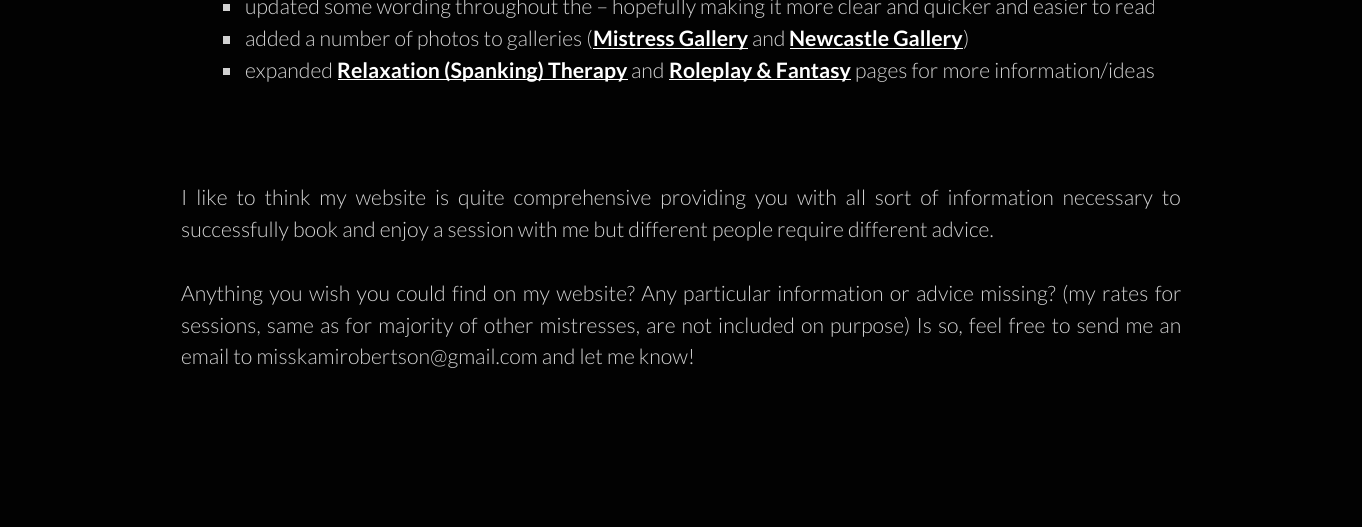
#include <cairo.h>
#include <math.h>
#include <stddef.h>


static void spaced_text(cairo_t *cr, double x, double y, const char *s, double letter, double word) {
    cairo_move_to(cr, x, y);
    while (*s) {
        char ch[5] = {0};
        int n = 0;
        do ch[n++] = *s++; while ((*s & 0xC0) == 0x80);
        cairo_show_text(cr, ch);
        cairo_rel_move_to(cr, letter + word * (*ch == ' '), 0);
    }
}

int main(void) {
    cairo_surface_t *surface = cairo_image_surface_create(CAIRO_FORMAT_RGB24, 1362, 527);
    cairo_t *cr = cairo_create(surface);
    cairo_font_options_t *options = cairo_font_options_create();
    cairo_font_options_set_hint_metrics(options, CAIRO_HINT_METRICS_OFF);
    cairo_font_options_set_hint_style(options, CAIRO_HINT_STYLE_NONE);
    cairo_set_font_options(cr, options);
    cairo_set_miter_limit(cr, 4);
    cairo_set_source_rgb(cr, 0.008, 0.008, 0.008);
    cairo_paint(cr);
    cairo_set_source_rgb(cr, 0.82, 0.82, 0.82);
    cairo_rectangle(cr, 223, 4, 7, 7);
    cairo_fill(cr);
    cairo_select_font_face(cr, "Lato Light", CAIRO_FONT_SLANT_NORMAL, CAIRO_FONT_WEIGHT_NORMAL);
    cairo_set_font_size(cr, 21.25);
    cairo_move_to(cr, 245, 14);
    cairo_show_text(cr, "updated some wording throughout the – hopefully making it more clear and quicker and easier to read");
    cairo_rectangle(cr, 223, 36, 7, 8);
    cairo_fill(cr);
    cairo_move_to(cr, 245, 46);
    cairo_show_text(cr, "added a number of photos to galleries (");
    cairo_set_source_rgb(cr, 1, 1, 1);
    cairo_rectangle(cr, 593, 48, 155, 1);
    cairo_fill(cr);
    cairo_select_font_face(cr, "Lato", CAIRO_FONT_SLANT_NORMAL, CAIRO_FONT_WEIGHT_BOLD);
    cairo_move_to(cr, 593, 46);
    cairo_show_text(cr, "Mistress Gallery");
    cairo_select_font_face(cr, "Lato Light", CAIRO_FONT_SLANT_NORMAL, CAIRO_FONT_WEIGHT_NORMAL);
    cairo_set_source_rgb(cr, 0.82, 0.82, 0.82);
    cairo_move_to(cr, 752, 46);
    cairo_show_text(cr, "and");
    cairo_set_source_rgb(cr, 1, 1, 1);
    cairo_rectangle(cr, 790, 48, 173, 1);
    cairo_fill(cr);
    cairo_select_font_face(cr, "Lato", CAIRO_FONT_SLANT_NORMAL, CAIRO_FONT_WEIGHT_BOLD);
    cairo_move_to(cr, 789, 46);
    cairo_show_text(cr, "Newcastle Gallery");
    cairo_select_font_face(cr, "Lato Light", CAIRO_FONT_SLANT_NORMAL, CAIRO_FONT_WEIGHT_NORMAL);
    cairo_set_source_rgb(cr, 0.82, 0.82, 0.82);
    cairo_move_to(cr, 963, 46);
    cairo_show_text(cr, ")");
    cairo_rectangle(cr, 223, 68, 7, 7);
    cairo_fill(cr);
    cairo_move_to(cr, 245, 78);
    cairo_show_text(cr, "expanded");
    cairo_set_source_rgb(cr, 1, 1, 1);
    cairo_rectangle(cr, 338, 79, 290, 1);
    cairo_fill(cr);
    cairo_select_font_face(cr, "Lato", CAIRO_FONT_SLANT_NORMAL, CAIRO_FONT_WEIGHT_BOLD);
    cairo_move_to(cr, 337, 78);
    cairo_show_text(cr, "Relaxation (Spanking) Therapy");
    cairo_select_font_face(cr, "Lato Light", CAIRO_FONT_SLANT_NORMAL, CAIRO_FONT_WEIGHT_NORMAL);
    cairo_set_source_rgb(cr, 0.82, 0.82, 0.82);
    cairo_move_to(cr, 631, 78);
    cairo_show_text(cr, "and");
    cairo_set_source_rgb(cr, 1, 1, 1);
    cairo_rectangle(cr, 669, 79, 182, 1);
    cairo_fill(cr);
    cairo_select_font_face(cr, "Lato", CAIRO_FONT_SLANT_NORMAL, CAIRO_FONT_WEIGHT_BOLD);
    cairo_move_to(cr, 669, 78);
    cairo_show_text(cr, "Roleplay & Fantasy");
    cairo_select_font_face(cr, "Lato Light", CAIRO_FONT_SLANT_NORMAL, CAIRO_FONT_WEIGHT_NORMAL);
    cairo_set_source_rgb(cr, 0.82, 0.82, 0.82);
    cairo_move_to(cr, 855, 78);
    cairo_show_text(cr, "pages for more information/ideas");
    spaced_text(cr, 181, 205, "I like to think my website is quite comprehensive providing you with all sort of information necessary to", 0, 4.75);
    cairo_move_to(cr, 181, 237);
    cairo_show_text(cr, "successfully book and enjoy a session with me but different people require different advice.");
    spaced_text(cr, 181, 301, "Anything you wish you could find on my website? Any particular information or advice missing? (my rates for", 0, 2.25);
    spaced_text(cr, 181, 333, "sessions, same as for majority of other mistresses, are not included on purpose) Is so, feel free to send me an", 0, 1.9);
    cairo_move_to(cr, 181, 364);
    cairo_show_text(cr, "email to misskamirobertson@gmail.com and let me know!");
    cairo_surface_write_to_png(surface, "page.png");
    cairo_font_options_destroy(options);
    cairo_destroy(cr);
    cairo_surface_destroy(surface);
    return 0;
}
